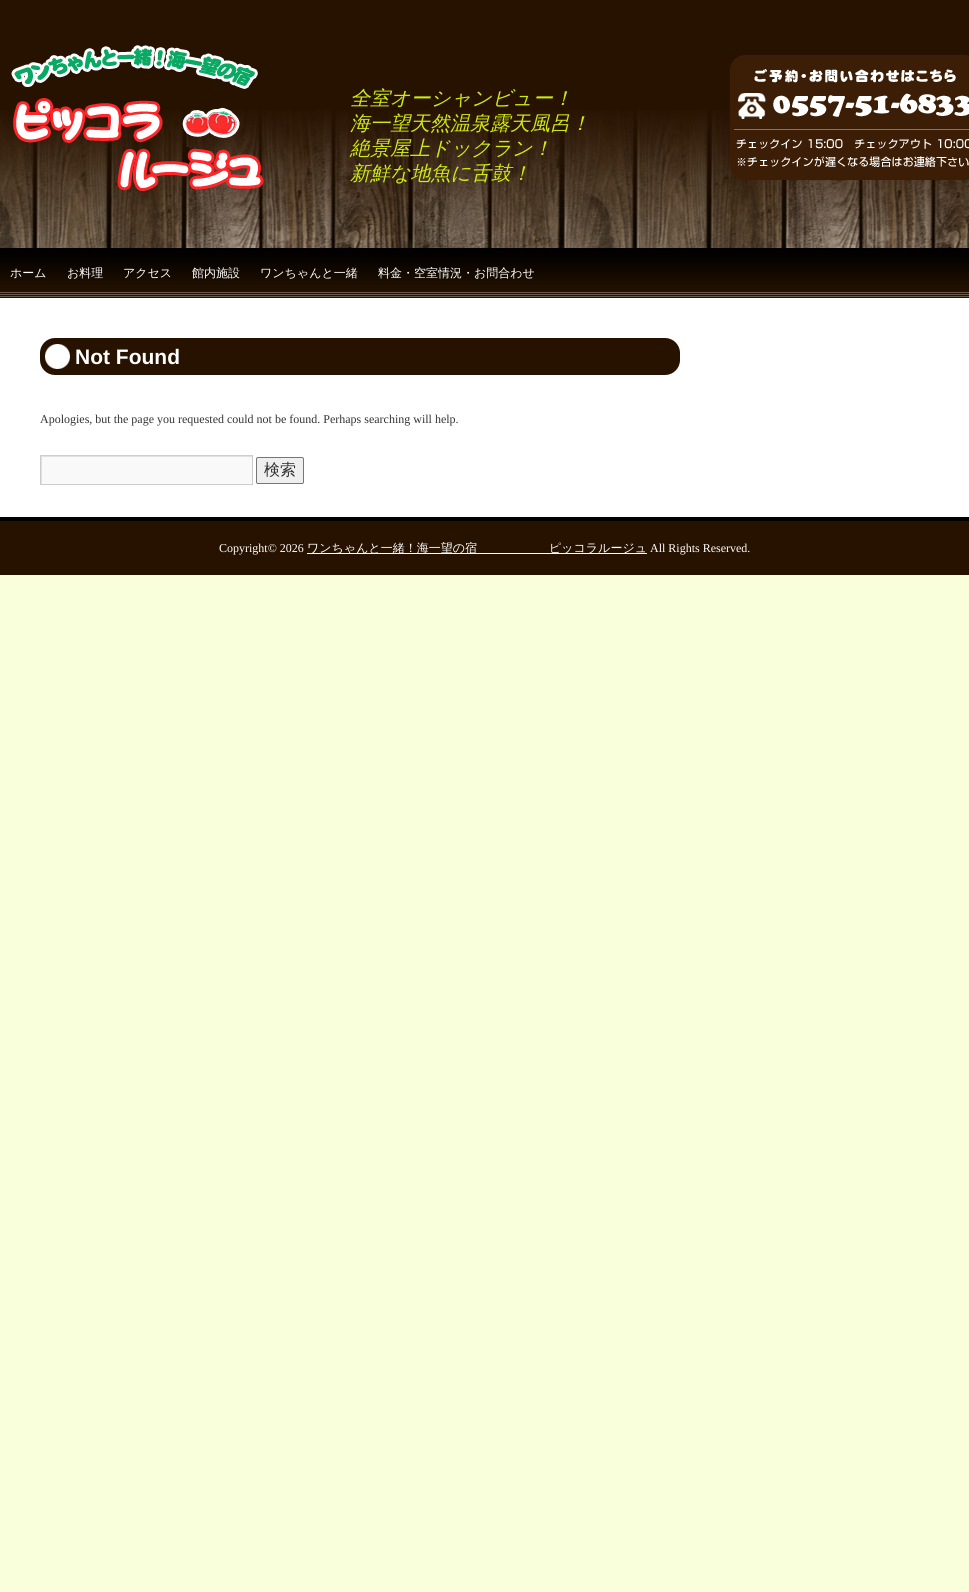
#include <cairo.h>
#include <math.h>
#include <stddef.h>


static void round_rect(cairo_t *cr, double x, double y, double w, double h, double r) {
    cairo_new_sub_path(cr);
    cairo_arc(cr, x + w - r, y + h - r, r, 0, M_PI / 2);
    cairo_arc(cr, x + r, y + h - r, r, M_PI / 2, M_PI);
    cairo_arc(cr, x + r, y + r, r, M_PI, 1.5 * M_PI);
    cairo_arc(cr, x + w - r, y + r, r, 1.5 * M_PI, 2 * M_PI);
    cairo_close_path(cr);
}

static void picture(cairo_t *cr, const char *path, double x, double y, double w, double h) {
    cairo_surface_t *image = cairo_image_surface_create_from_png(path);
    cairo_save(cr);
    cairo_set_source_surface(cr, image, x, y);
    cairo_rectangle(cr, x, y, w, h);
    cairo_fill(cr);
    cairo_restore(cr);
    cairo_surface_destroy(image);
}

int main(void) {
    cairo_surface_t *surface = cairo_image_surface_create(CAIRO_FORMAT_RGB24, 969, 1592);
    cairo_t *cr = cairo_create(surface);
    cairo_font_options_t *options = cairo_font_options_create();
    cairo_font_options_set_hint_metrics(options, CAIRO_HINT_METRICS_OFF);
    cairo_font_options_set_hint_style(options, CAIRO_HINT_STYLE_NONE);
    cairo_set_font_options(cr, options);
    cairo_set_miter_limit(cr, 4);
    cairo_set_source_rgb(cr, 0.976, 1, 0.859);
    cairo_paint(cr);
    cairo_set_source_rgb(cr, 0.153, 0.071, 0);
    cairo_rectangle(cr, 0, 0, 969, 298);
    cairo_fill(cr);
    picture(cr, "img1.png", 0, 110, 969, 187);
    picture(cr, "img2.png", 11, 45, 253, 146);
    cairo_select_font_face(cr, "WenQuanYi Zen Hei Medium", CAIRO_FONT_SLANT_ITALIC, CAIRO_FONT_WEIGHT_NORMAL);
    cairo_set_font_size(cr, 20);
    cairo_set_source_rgb(cr, 0.812, 0.914, 0.082);
    cairo_move_to(cr, 350, 105);
    cairo_show_text(cr, "全室オーシャンビュー！");
    cairo_move_to(cr, 350, 130);
    cairo_show_text(cr, "海一望天然温泉露天風呂！");
    cairo_move_to(cr, 350, 155);
    cairo_show_text(cr, "絶景屋上ドックラン！");
    cairo_move_to(cr, 350, 180);
    cairo_show_text(cr, "新鮮な地魚に舌鼓！");
    picture(cr, "img3.png", 730, 55, 239, 125);
    cairo_select_font_face(cr, "WenQuanYi Zen Hei Medium", CAIRO_FONT_SLANT_NORMAL, CAIRO_FONT_WEIGHT_NORMAL);
    cairo_set_font_size(cr, 12);
    cairo_set_source_rgb(cr, 1, 1, 1);
    cairo_move_to(cr, 10, 277);
    cairo_show_text(cr, "ホーム");
    cairo_move_to(cr, 67, 277);
    cairo_show_text(cr, "お料理");
    cairo_move_to(cr, 123, 277);
    cairo_show_text(cr, "アクセス");
    cairo_move_to(cr, 192, 277);
    cairo_show_text(cr, "館内施設");
    cairo_move_to(cr, 260, 277);
    cairo_show_text(cr, "ワンちゃんと一緒");
    cairo_move_to(cr, 378, 277);
    cairo_show_text(cr, "料金・空室情況・お問合わせ");
    cairo_rectangle(cr, 0, 298, 969, 219);
    cairo_fill(cr);
    picture(cr, "img4.png", 40, 338, 640, 37);
    cairo_select_font_face(cr, "Liberation Sans", CAIRO_FONT_SLANT_NORMAL, CAIRO_FONT_WEIGHT_BOLD);
    cairo_set_font_size(cr, 21);
    cairo_move_to(cr, 75, 364);
    cairo_show_text(cr, "Not Found");
    cairo_select_font_face(cr, "Liberation Serif", CAIRO_FONT_SLANT_NORMAL, CAIRO_FONT_WEIGHT_NORMAL);
    cairo_set_font_size(cr, 12);
    cairo_set_source_rgb(cr, 0.2, 0.2, 0.2);
    cairo_move_to(cr, 40, 423);
    cairo_show_text(cr, "Apologies, but the page you requested could not be found. Perhaps searching will help.");
    cairo_set_source_rgb(cr, 0.976, 0.976, 0.976);
    cairo_rectangle(cr, 42, 457, 210, 27);
    cairo_fill(cr);
    cairo_save(cr);
    cairo_rectangle(cr, 41, 456, 211, 28);
    cairo_clip(cr);
    cairo_set_source_rgb(cr, 0.878, 0.878, 0.878);
    cairo_set_fill_rule(cr, CAIRO_FILL_RULE_EVEN_ODD);
    cairo_new_path(cr);
    cairo_move_to(cr, -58, 357);
    cairo_line_to(cr, 351, 357);
    cairo_line_to(cr, 351, 583);
    cairo_line_to(cr, -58, 583);
    cairo_close_path(cr);
    cairo_move_to(cr, 42, 457);
    cairo_line_to(cr, 253, 457);
    cairo_line_to(cr, 253, 485);
    cairo_line_to(cr, 42, 485);
    cairo_close_path(cr);
    cairo_fill(cr);
    cairo_restore(cr);
    cairo_rectangle(cr, 40.5, 455.5, 212, 29);
    cairo_set_source_rgb(cr, 0.8, 0.8, 0.8);
    cairo_set_line_width(cr, 1);
    cairo_stroke(cr);
    cairo_set_source_rgb(cr, 0.937, 0.937, 0.937);
    round_rect(cr, 256.5, 457.5, 47, 26, 1.5);
    cairo_fill_preserve(cr);
    cairo_set_source_rgb(cr, 0.463, 0.463, 0.463);
    cairo_stroke(cr);
    cairo_select_font_face(cr, "WenQuanYi Zen Hei Medium", CAIRO_FONT_SLANT_NORMAL, CAIRO_FONT_WEIGHT_NORMAL);
    cairo_set_font_size(cr, 16);
    cairo_set_source_rgb(cr, 0.2, 0.2, 0.2);
    cairo_move_to(cr, 264, 475);
    cairo_show_text(cr, "検索");
    cairo_set_source_rgb(cr, 0.153, 0.071, 0);
    cairo_rectangle(cr, 0, 521, 969, 54);
    cairo_fill(cr);
    cairo_set_source_rgb(cr, 0, 0, 0);
    cairo_rectangle(cr, 0, 517, 969, 4);
    cairo_fill(cr);
    cairo_select_font_face(cr, "Liberation Serif", CAIRO_FONT_SLANT_NORMAL, CAIRO_FONT_WEIGHT_NORMAL);
    cairo_set_font_size(cr, 12);
    cairo_set_source_rgb(cr, 1, 1, 1);
    cairo_move_to(cr, 219, 552);
    cairo_show_text(cr, "Copyright© 2026");
    cairo_rectangle(cr, 307, 553, 340, 1);
    cairo_fill(cr);
    cairo_select_font_face(cr, "WenQuanYi Zen Hei Medium", CAIRO_FONT_SLANT_NORMAL, CAIRO_FONT_WEIGHT_NORMAL);
    cairo_move_to(cr, 307, 552);
    cairo_show_text(cr, "ワンちゃんと一緒！海一望の宿　　　　　　ピッコラルージュ");
    cairo_select_font_face(cr, "Liberation Serif", CAIRO_FONT_SLANT_NORMAL, CAIRO_FONT_WEIGHT_NORMAL);
    cairo_move_to(cr, 650, 552);
    cairo_show_text(cr, "All Rights Reserved.");
    cairo_surface_write_to_png(surface, "page.png");
    cairo_font_options_destroy(options);
    cairo_destroy(cr);
    cairo_surface_destroy(surface);
    return 0;
}
